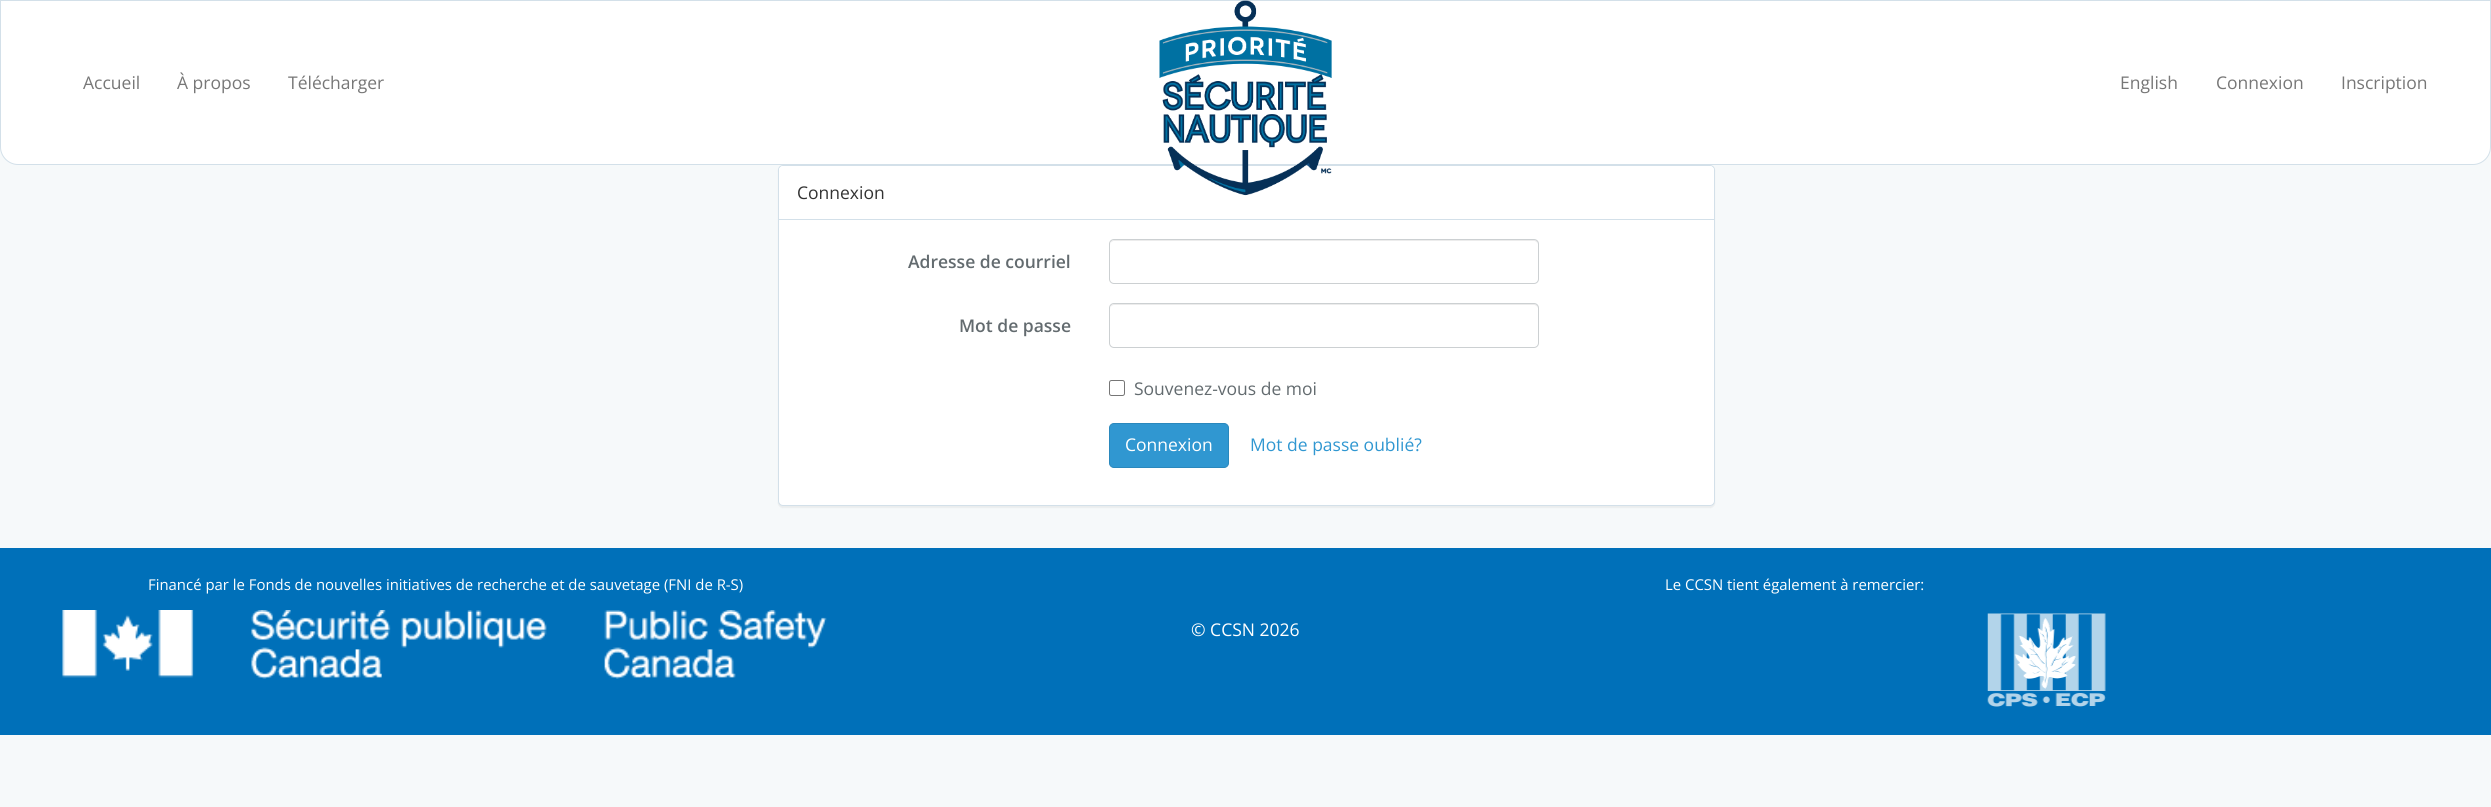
#include <cairo.h>
#include <math.h>
#include <stddef.h>


static void round_rect(cairo_t *cr, double x, double y, double w, double h, double r) {
    cairo_new_sub_path(cr);
    cairo_arc(cr, x + w - r, y + h - r, r, 0, M_PI / 2);
    cairo_arc(cr, x + r, y + h - r, r, M_PI / 2, M_PI);
    cairo_arc(cr, x + r, y + r, r, M_PI, 1.5 * M_PI);
    cairo_arc(cr, x + w - r, y + r, r, 1.5 * M_PI, 2 * M_PI);
    cairo_close_path(cr);
}

static void shadow(cairo_t *cr, double x, double y, double w, double h, double r, double blur, double alpha) {
    cairo_push_group_with_content(cr, CAIRO_CONTENT_ALPHA);
    cairo_set_operator(cr, CAIRO_OPERATOR_SOURCE);
    for (int i = 15; i >= -15 && fmin(w, h) + blur * i / 3 > 0; i -= 2) {
        double e = blur * i / 6;
        cairo_set_source_rgba(cr, 0, 0, 0, alpha * erfc((i - 1) / 8.5) / 2);
        round_rect(cr, x - e, y - e, w + 2 * e, h + 2 * e, fmax(0, fmin(r + e + blur * .6, fmin(w, h) / 2 + e)));
        cairo_fill(cr);
    }
    cairo_pattern_t *soft = cairo_pop_group(cr);
    cairo_mask(cr, soft);
    cairo_pattern_destroy(soft);
}

static void picture(cairo_t *cr, const char *path, double x, double y, double w, double h) {
    cairo_surface_t *image = cairo_image_surface_create_from_png(path);
    cairo_save(cr);
    cairo_set_source_surface(cr, image, x, y);
    cairo_rectangle(cr, x, y, w, h);
    cairo_fill(cr);
    cairo_restore(cr);
    cairo_surface_destroy(image);
}

int main(void) {
    cairo_surface_t *surface = cairo_image_surface_create(CAIRO_FORMAT_RGB24, 2491, 807);
    cairo_t *cr = cairo_create(surface);
    cairo_font_options_t *options = cairo_font_options_create();
    cairo_font_options_set_hint_metrics(options, CAIRO_HINT_METRICS_OFF);
    cairo_font_options_set_hint_style(options, CAIRO_HINT_STYLE_NONE);
    cairo_set_font_options(cr, options);
    cairo_set_miter_limit(cr, 4);
    cairo_set_source_rgb(cr, 0.961, 0.973, 0.98);
    cairo_paint(cr);
    cairo_set_source_rgb(cr, 1, 1, 1);
    cairo_new_path(cr);
    cairo_move_to(cr, 0.5, 0.5);
    cairo_line_to(cr, 2490.5, 0.5);
    cairo_line_to(cr, 2490.5, 147);
    cairo_curve_to(cr, 2490.5, 156.5, 2482.5, 164.5, 2473, 164.5);
    cairo_line_to(cr, 18, 164.5);
    cairo_curve_to(cr, 8.5, 164.5, 0.5, 156.5, 0.5, 147);
    cairo_close_path(cr);
    cairo_fill_preserve(cr);
    cairo_set_source_rgb(cr, 0.827, 0.878, 0.914);
    cairo_set_line_width(cr, 1);
    cairo_stroke(cr);
    cairo_set_source_rgb(cr, 0, 0, 0);
    shadow(cr, 778, 166, 937, 342, 5, 0.5, 0.05);
    cairo_set_source_rgb(cr, 1, 1, 1);
    round_rect(cr, 778.5, 165.5, 936, 340, 4.5);
    cairo_fill_preserve(cr);
    cairo_set_source_rgb(cr, 0.827, 0.878, 0.914);
    cairo_stroke(cr);
    cairo_set_source_rgb(cr, 1, 1, 1);
    cairo_new_path(cr);
    cairo_move_to(cr, 783, 166);
    cairo_line_to(cr, 1710, 166);
    cairo_curve_to(cr, 1712, 166, 1714, 168, 1714, 170);
    cairo_line_to(cr, 1714, 220);
    cairo_line_to(cr, 779, 220);
    cairo_line_to(cr, 779, 170);
    cairo_curve_to(cr, 779, 168, 781, 166, 783, 166);
    cairo_close_path(cr);
    cairo_fill(cr);
    picture(cr, "img1.png", 1159, 0, 173, 196);
    cairo_select_font_face(cr, "Open Sans", CAIRO_FONT_SLANT_NORMAL, CAIRO_FONT_WEIGHT_NORMAL);
    cairo_set_font_size(cr, 17.5);
    cairo_set_source_rgb(cr, 0.467, 0.467, 0.467);
    cairo_move_to(cr, 83, 89);
    cairo_show_text(cr, "Accueil");
    cairo_move_to(cr, 177, 89);
    cairo_show_text(cr, "À propos");
    cairo_move_to(cr, 288, 89);
    cairo_show_text(cr, "Télécharger");
    cairo_move_to(cr, 2120, 89);
    cairo_show_text(cr, "English");
    cairo_move_to(cr, 2216, 89);
    cairo_show_text(cr, "Connexion");
    cairo_move_to(cr, 2341, 89);
    cairo_show_text(cr, "Inscription");
    cairo_set_source_rgb(cr, 0.827, 0.878, 0.914);
    cairo_rectangle(cr, 779, 219, 935, 1);
    cairo_fill(cr);
    cairo_set_source_rgb(cr, 0.2, 0.2, 0.2);
    cairo_move_to(cr, 797, 199);
    cairo_show_text(cr, "Connexion");
    cairo_select_font_face(cr, "Open Sans SemiBold", CAIRO_FONT_SLANT_NORMAL, CAIRO_FONT_WEIGHT_NORMAL);
    cairo_set_source_rgb(cr, 0.388, 0.42, 0.435);
    cairo_move_to(cr, 908, 268);
    cairo_show_text(cr, "Adresse de courriel");
    cairo_set_source_rgb(cr, 0.925, 0.925, 0.925);
    cairo_new_path(cr);
    cairo_move_to(cr, 1114, 241);
    cairo_line_to(cr, 1534, 241);
    cairo_curve_to(cr, 1536, 241, 1538, 243, 1538, 245);
    cairo_curve_to(cr, 1538, 242, 1537, 240, 1534, 240);
    cairo_line_to(cr, 1114, 240);
    cairo_curve_to(cr, 1113, 240, 1111, 241, 1111, 242);
    cairo_line_to(cr, 1110, 245);
    cairo_curve_to(cr, 1110, 243, 1112, 241, 1114, 241);
    cairo_close_path(cr);
    cairo_fill(cr);
    round_rect(cr, 1109.5, 239.5, 429, 44, 4.5);
    cairo_set_source_rgb(cr, 0.8, 0.816, 0.824);
    cairo_stroke(cr);
    cairo_set_source_rgb(cr, 0.388, 0.42, 0.435);
    cairo_move_to(cr, 959, 332);
    cairo_show_text(cr, "Mot de passe");
    cairo_set_source_rgb(cr, 0.925, 0.925, 0.925);
    cairo_new_path(cr);
    cairo_move_to(cr, 1114, 305);
    cairo_line_to(cr, 1534, 305);
    cairo_curve_to(cr, 1536, 305, 1538, 307, 1538, 309);
    cairo_curve_to(cr, 1538, 306, 1537, 304, 1534, 304);
    cairo_line_to(cr, 1114, 304);
    cairo_curve_to(cr, 1113, 304, 1111, 305, 1111, 306);
    cairo_line_to(cr, 1110, 309);
    cairo_curve_to(cr, 1110, 307, 1112, 305, 1114, 305);
    cairo_close_path(cr);
    cairo_fill(cr);
    round_rect(cr, 1109.5, 303.5, 429, 44, 4.5);
    cairo_set_source_rgb(cr, 0.8, 0.816, 0.824);
    cairo_stroke(cr);
    round_rect(cr, 1109.5, 380.5, 15, 15, 2);
    cairo_set_source_rgb(cr, 0.463, 0.463, 0.463);
    cairo_stroke(cr);
    cairo_select_font_face(cr, "Open Sans", CAIRO_FONT_SLANT_NORMAL, CAIRO_FONT_WEIGHT_NORMAL);
    cairo_set_source_rgb(cr, 0.388, 0.42, 0.435);
    cairo_move_to(cr, 1134, 395);
    cairo_show_text(cr, "Souvenez-vous de moi");
    cairo_set_source_rgb(cr, 0.188, 0.592, 0.82);
    round_rect(cr, 1109.5, 423.5, 119, 44, 4.5);
    cairo_fill_preserve(cr);
    cairo_set_source_rgb(cr, 0.165, 0.533, 0.741);
    cairo_stroke(cr);
    cairo_set_source_rgb(cr, 1, 1, 1);
    cairo_move_to(cr, 1125, 451);
    cairo_show_text(cr, "Connexion");
    cairo_set_source_rgb(cr, 0.188, 0.592, 0.82);
    cairo_move_to(cr, 1250, 451);
    cairo_show_text(cr, "Mot de passe oublié?");
    cairo_set_source_rgb(cr, 0, 0.439, 0.725);
    cairo_rectangle(cr, 0, 548, 2491, 187);
    cairo_fill(cr);
    cairo_set_font_size(cr, 14.9);
    cairo_set_source_rgb(cr, 1, 1, 1);
    cairo_move_to(cr, 148, 590);
    cairo_show_text(cr, "Financé par le Fonds de nouvelles initiatives de recherche et de sauvetage (FNI de R-S)");
    picture(cr, "img2.png", 62, 610, 765, 69);
    cairo_move_to(cr, 1665, 590);
    cairo_show_text(cr, "Le CCSN tient également à remercier:");
    picture(cr, "img3.png", 1987, 613, 119, 94);
    cairo_set_font_size(cr, 17.5);
    cairo_move_to(cr, 1191, 636);
    cairo_show_text(cr, "© CCSN 2026");
    cairo_surface_write_to_png(surface, "page.png");
    cairo_font_options_destroy(options);
    cairo_destroy(cr);
    cairo_surface_destroy(surface);
    return 0;
}
